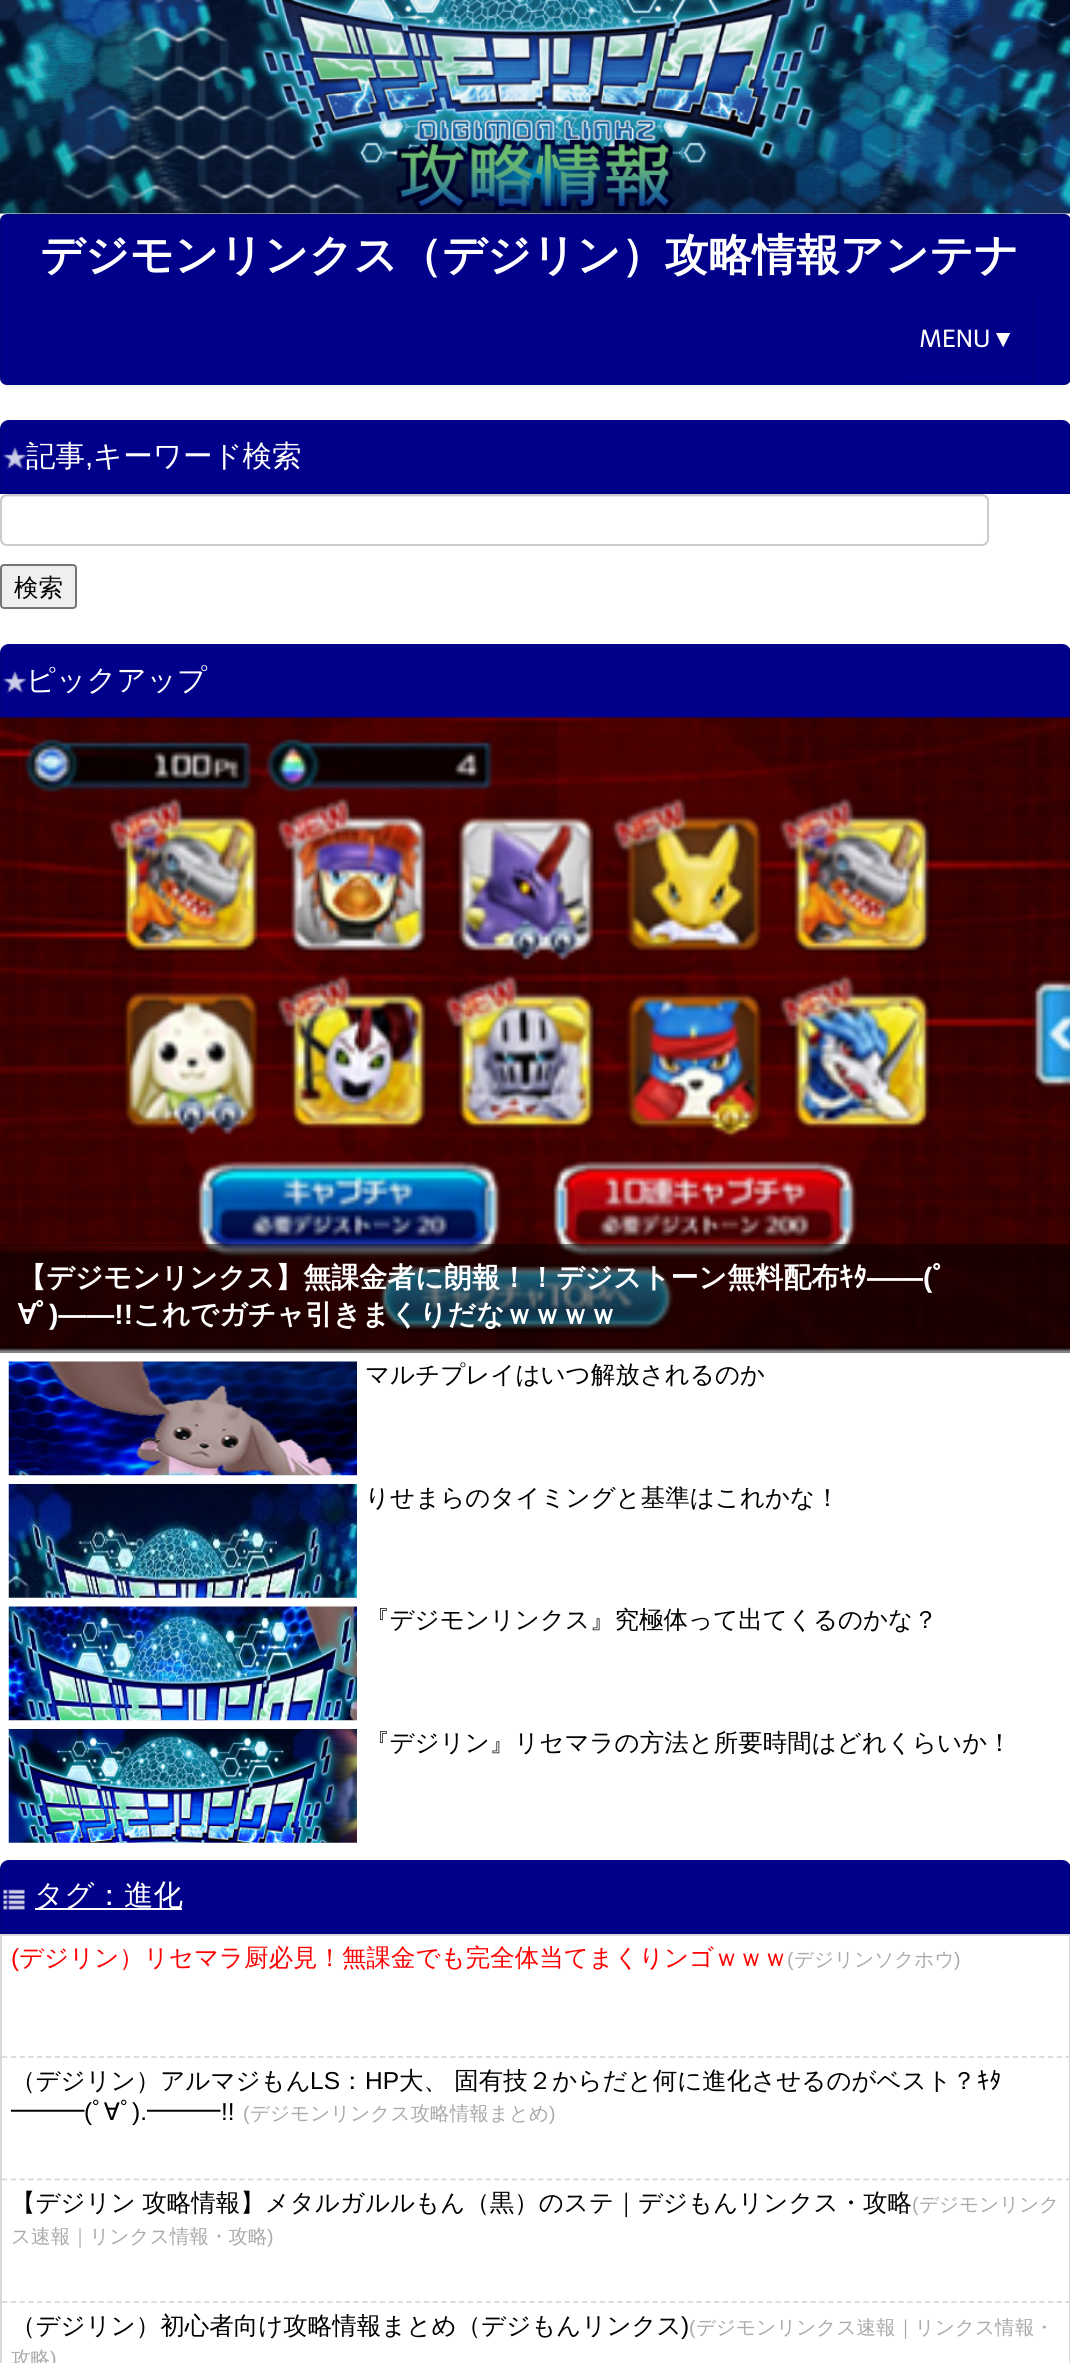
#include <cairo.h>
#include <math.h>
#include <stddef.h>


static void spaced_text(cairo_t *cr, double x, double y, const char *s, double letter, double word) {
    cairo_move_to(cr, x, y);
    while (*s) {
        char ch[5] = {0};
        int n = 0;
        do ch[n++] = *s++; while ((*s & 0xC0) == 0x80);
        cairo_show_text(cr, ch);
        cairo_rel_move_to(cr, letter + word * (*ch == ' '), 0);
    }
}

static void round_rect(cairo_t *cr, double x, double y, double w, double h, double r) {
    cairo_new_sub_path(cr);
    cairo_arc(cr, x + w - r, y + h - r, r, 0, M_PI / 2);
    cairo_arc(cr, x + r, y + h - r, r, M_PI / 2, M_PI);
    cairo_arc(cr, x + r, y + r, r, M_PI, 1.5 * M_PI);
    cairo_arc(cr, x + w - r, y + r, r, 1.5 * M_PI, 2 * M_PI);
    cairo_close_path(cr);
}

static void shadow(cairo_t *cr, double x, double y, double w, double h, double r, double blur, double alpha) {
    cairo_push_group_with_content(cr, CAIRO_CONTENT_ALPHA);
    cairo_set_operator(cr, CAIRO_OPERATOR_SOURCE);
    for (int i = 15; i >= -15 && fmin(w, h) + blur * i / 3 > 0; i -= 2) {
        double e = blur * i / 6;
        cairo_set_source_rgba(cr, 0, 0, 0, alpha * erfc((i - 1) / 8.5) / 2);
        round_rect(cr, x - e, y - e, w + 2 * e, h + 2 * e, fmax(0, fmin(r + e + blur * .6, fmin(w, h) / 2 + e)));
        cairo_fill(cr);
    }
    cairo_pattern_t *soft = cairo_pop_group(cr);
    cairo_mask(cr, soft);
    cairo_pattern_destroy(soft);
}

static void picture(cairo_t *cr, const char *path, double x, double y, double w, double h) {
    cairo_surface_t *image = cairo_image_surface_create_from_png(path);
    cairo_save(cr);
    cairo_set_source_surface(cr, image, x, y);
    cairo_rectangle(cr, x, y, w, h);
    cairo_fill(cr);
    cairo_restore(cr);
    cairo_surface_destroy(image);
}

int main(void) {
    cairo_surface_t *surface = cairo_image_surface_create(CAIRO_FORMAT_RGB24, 1070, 2363);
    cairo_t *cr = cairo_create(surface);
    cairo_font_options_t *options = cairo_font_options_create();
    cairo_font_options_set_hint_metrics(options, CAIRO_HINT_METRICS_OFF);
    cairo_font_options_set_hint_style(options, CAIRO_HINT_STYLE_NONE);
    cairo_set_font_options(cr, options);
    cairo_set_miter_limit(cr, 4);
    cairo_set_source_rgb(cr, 1, 1, 1);
    cairo_paint(cr);
    cairo_set_source_rgb(cr, 0, 0, 0);
    shadow(cr, 0, 215, 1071, 172, 7, 3.5, 0.07);
    picture(cr, "img1.png", 0, 0, 1070, 214);
    cairo_set_source_rgb(cr, 0, 0, 0.545);
    round_rect(cr, 1, 215, 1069, 169, 6);
    cairo_fill_preserve(cr);
    cairo_set_source_rgb(cr, 0, 0, 0.502);
    cairo_stroke(cr);
    cairo_select_font_face(cr, "WenQuanYi Zen Hei", CAIRO_FONT_SLANT_NORMAL, CAIRO_FONT_WEIGHT_BOLD);
    cairo_set_font_size(cr, 43.75);
    cairo_set_source_rgb(cr, 1, 1, 1);
    cairo_move_to(cr, 40, 270);
    cairo_show_text(cr, "デジモンリンクス（デジリン）攻略情報アンテナ");
    cairo_rectangle(cr, 901, 293, 132, 89);
    cairo_set_source_rgb(cr, 0, 0, 0.502);
    cairo_stroke(cr);
    cairo_select_font_face(cr, "Telex", CAIRO_FONT_SLANT_NORMAL, CAIRO_FONT_WEIGHT_NORMAL);
    cairo_set_font_size(cr, 24.5);
    cairo_set_source_rgb(cr, 1, 1, 1);
    cairo_move_to(cr, 919, 347);
    cairo_show_text(cr, "MENU");
    cairo_select_font_face(cr, "Liberation Sans", CAIRO_FONT_SLANT_NORMAL, CAIRO_FONT_WEIGHT_NORMAL);
    cairo_move_to(cr, 991, 347);
    cairo_show_text(cr, "▼");
    cairo_set_source_rgb(cr, 0, 0, 0.545);
    cairo_new_path(cr);
    cairo_move_to(cr, 9, 421);
    cairo_line_to(cr, 1062, 421);
    cairo_curve_to(cr, 1066.5, 421, 1070, 424.5, 1070, 429);
    cairo_line_to(cr, 1070, 493);
    cairo_line_to(cr, 1, 493);
    cairo_line_to(cr, 1, 429);
    cairo_curve_to(cr, 1, 424.5, 4.5, 421, 9, 421);
    cairo_close_path(cr);
    cairo_fill_preserve(cr);
    cairo_set_source_rgb(cr, 0, 0, 0.502);
    cairo_stroke(cr);
    cairo_select_font_face(cr, "WenQuanYi Zen Hei Medium", CAIRO_FONT_SLANT_NORMAL, CAIRO_FONT_WEIGHT_NORMAL);
    cairo_set_font_size(cr, 29.5);
    cairo_set_source_rgb(cr, 1, 1, 1);
    cairo_move_to(cr, 26, 466);
    cairo_show_text(cr, "記事");
    picture(cr, "img2.png", 3, 447, 24, 23);
    cairo_select_font_face(cr, "Liberation Sans", CAIRO_FONT_SLANT_NORMAL, CAIRO_FONT_WEIGHT_NORMAL);
    cairo_move_to(cr, 85, 466);
    cairo_show_text(cr, ",");
    cairo_select_font_face(cr, "WenQuanYi Zen Hei Medium", CAIRO_FONT_SLANT_NORMAL, CAIRO_FONT_WEIGHT_NORMAL);
    cairo_move_to(cr, 93, 466);
    cairo_show_text(cr, "キーワード検索");
    cairo_set_source_rgb(cr, 0.925, 0.925, 0.925);
    cairo_new_path(cr);
    cairo_move_to(cr, 7, 497);
    cairo_line_to(cr, 982, 497);
    cairo_curve_to(cr, 985, 497, 987, 499, 987, 502);
    cairo_line_to(cr, 987, 500);
    cairo_curve_to(cr, 987, 497, 985, 495, 982, 495);
    cairo_line_to(cr, 7, 495);
    cairo_curve_to(cr, 4, 495, 2, 497, 2, 500);
    cairo_line_to(cr, 2, 502);
    cairo_curve_to(cr, 2, 499, 4, 497, 7, 497);
    cairo_close_path(cr);
    cairo_fill(cr);
    round_rect(cr, 1, 495, 987, 50, 6);
    cairo_set_source_rgb(cr, 0.8, 0.8, 0.8);
    cairo_stroke(cr);
    cairo_set_source_rgb(cr, 0.937, 0.937, 0.937);
    round_rect(cr, 1, 565, 75, 43, 3);
    cairo_fill_preserve(cr);
    cairo_set_source_rgb(cr, 0.463, 0.463, 0.463);
    cairo_stroke(cr);
    cairo_set_font_size(cr, 24.5);
    cairo_set_source_rgb(cr, 0, 0, 0);
    cairo_move_to(cr, 14, 596);
    cairo_show_text(cr, "検索");
    cairo_set_source_rgb(cr, 0, 0, 0.545);
    cairo_new_path(cr);
    cairo_move_to(cr, 9, 645);
    cairo_line_to(cr, 1062, 645);
    cairo_curve_to(cr, 1066.5, 645, 1070, 648.5, 1070, 653);
    cairo_line_to(cr, 1070, 717);
    cairo_line_to(cr, 1, 717);
    cairo_line_to(cr, 1, 653);
    cairo_curve_to(cr, 1, 648.5, 4.5, 645, 9, 645);
    cairo_close_path(cr);
    cairo_fill_preserve(cr);
    cairo_set_source_rgb(cr, 0, 0, 0.502);
    cairo_stroke(cr);
    picture(cr, "img3.png", 3, 671, 24, 23);
    cairo_set_font_size(cr, 29.5);
    cairo_set_source_rgb(cr, 1, 1, 1);
    cairo_move_to(cr, 26, 690);
    cairo_show_text(cr, "ピックアップ");
    picture(cr, "img4.png", 0, 717, 1070, 634);
    cairo_set_source_rgba(cr, 0, 0, 0, 0.49);
    cairo_rectangle(cr, 0, 1244, 1070, 109);
    cairo_fill(cr);
    cairo_select_font_face(cr, "WenQuanYi Zen Hei", CAIRO_FONT_SLANT_NORMAL, CAIRO_FONT_WEIGHT_BOLD);
    cairo_set_font_size(cr, 28);
    cairo_set_source_rgb(cr, 1, 1, 1);
    cairo_move_to(cr, 18, 1287);
    cairo_show_text(cr, "【デジモンリンクス】無課金者に朗報！！デジストーン無料配布");
    cairo_select_font_face(cr, "IPAPGothic", CAIRO_FONT_SLANT_NORMAL, CAIRO_FONT_WEIGHT_BOLD);
    cairo_move_to(cr, 839, 1287);
    cairo_show_text(cr, "ｷﾀ");
    cairo_select_font_face(cr, "Liberation Sans", CAIRO_FONT_SLANT_NORMAL, CAIRO_FONT_WEIGHT_BOLD);
    cairo_move_to(cr, 867, 1287);
    cairo_show_text(cr, "――(");
    cairo_select_font_face(cr, "IPAPGothic", CAIRO_FONT_SLANT_NORMAL, CAIRO_FONT_WEIGHT_BOLD);
    cairo_move_to(cr, 932, 1287);
    cairo_show_text(cr, "ﾟ");
    cairo_select_font_face(cr, "WenQuanYi Zen Hei", CAIRO_FONT_SLANT_NORMAL, CAIRO_FONT_WEIGHT_BOLD);
    cairo_move_to(cr, 18, 1324);
    cairo_show_text(cr, "∀");
    cairo_select_font_face(cr, "IPAPGothic", CAIRO_FONT_SLANT_NORMAL, CAIRO_FONT_WEIGHT_BOLD);
    cairo_move_to(cr, 35, 1324);
    cairo_show_text(cr, "ﾟ");
    cairo_select_font_face(cr, "Liberation Sans", CAIRO_FONT_SLANT_NORMAL, CAIRO_FONT_WEIGHT_BOLD);
    cairo_move_to(cr, 49, 1324);
    cairo_show_text(cr, ")――!!");
    cairo_select_font_face(cr, "WenQuanYi Zen Hei", CAIRO_FONT_SLANT_NORMAL, CAIRO_FONT_WEIGHT_BOLD);
    cairo_move_to(cr, 133, 1324);
    cairo_show_text(cr, "これでガチャ引きまくりだなｗｗｗｗ");
    picture(cr, "img5.png", 8, 1361, 349, 115);
    cairo_select_font_face(cr, "WenQuanYi Zen Hei Medium", CAIRO_FONT_SLANT_NORMAL, CAIRO_FONT_WEIGHT_NORMAL);
    cairo_set_font_size(cr, 24.5);
    cairo_set_source_rgb(cr, 0, 0, 0);
    cairo_move_to(cr, 365, 1383);
    cairo_show_text(cr, "マルチプレイはいつ解放されるのか");
    picture(cr, "img6.png", 8, 1484, 349, 114);
    cairo_move_to(cr, 365, 1506);
    cairo_show_text(cr, "りせまらのタイミングと基準はこれかな！");
    picture(cr, "img7.png", 8, 1606, 349, 115);
    cairo_move_to(cr, 365, 1628);
    cairo_show_text(cr, "『デジモンリンクス』究極体って出てくるのかな？");
    picture(cr, "img8.png", 8, 1729, 349, 114);
    cairo_move_to(cr, 365, 1751);
    cairo_show_text(cr, "『デジリン』リセマラの方法と所要時間はどれくらいか！");
    cairo_set_source_rgb(cr, 0, 0, 0.545);
    cairo_new_path(cr);
    cairo_move_to(cr, 9, 1861);
    cairo_line_to(cr, 1062, 1861);
    cairo_curve_to(cr, 1066.5, 1861, 1070, 1864.5, 1070, 1869);
    cairo_line_to(cr, 1070, 1933);
    cairo_line_to(cr, 1, 1933);
    cairo_line_to(cr, 1, 1869);
    cairo_curve_to(cr, 1, 1864.5, 4.5, 1861, 9, 1861);
    cairo_close_path(cr);
    cairo_fill_preserve(cr);
    cairo_set_source_rgb(cr, 0, 0, 0.502);
    cairo_stroke(cr);
    picture(cr, "img9.png", 3, 1889, 22, 22);
    cairo_set_source_rgb(cr, 1, 1, 1);
    cairo_rectangle(cr, 35, 1908, 147, 2);
    cairo_fill(cr);
    cairo_set_font_size(cr, 29.5);
    cairo_move_to(cr, 34, 1905);
    cairo_show_text(cr, "タグ：進化");
    cairo_rectangle(cr, 1, 1935, 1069, 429);
    cairo_set_source_rgb(cr, 0.847, 0.847, 0.847);
    cairo_stroke(cr);
    cairo_new_path(cr);
    cairo_move_to(cr, 2, 2057);
    cairo_line_to(cr, 1069, 2057);
    cairo_set_line_width(cr, 1.8);
    cairo_set_dash(cr, (double[]){5.25, 3.54}, 2, 0);
    cairo_stroke(cr);
    cairo_select_font_face(cr, "Liberation Sans", CAIRO_FONT_SLANT_NORMAL, CAIRO_FONT_WEIGHT_NORMAL);
    cairo_set_font_size(cr, 24.5);
    cairo_set_source_rgb(cr, 1, 0, 0);
    cairo_move_to(cr, 11, 1966);
    cairo_show_text(cr, "(");
    cairo_select_font_face(cr, "WenQuanYi Zen Hei Medium", CAIRO_FONT_SLANT_NORMAL, CAIRO_FONT_WEIGHT_NORMAL);
    cairo_move_to(cr, 19, 1966);
    cairo_show_text(cr, "デジリン）リセマラ厨必見！無課金でも完全体当てまくりンゴｗｗｗ");
    cairo_select_font_face(cr, "Liberation Sans", CAIRO_FONT_SLANT_NORMAL, CAIRO_FONT_WEIGHT_NORMAL);
    cairo_set_font_size(cr, 19.6);
    cairo_set_source_rgb(cr, 0.667, 0.667, 0.667);
    cairo_move_to(cr, 787, 1966);
    cairo_show_text(cr, "(");
    cairo_select_font_face(cr, "WenQuanYi Zen Hei Medium", CAIRO_FONT_SLANT_NORMAL, CAIRO_FONT_WEIGHT_NORMAL);
    cairo_move_to(cr, 794, 1966);
    cairo_show_text(cr, "デジリンソクホウ");
    cairo_select_font_face(cr, "Liberation Sans", CAIRO_FONT_SLANT_NORMAL, CAIRO_FONT_WEIGHT_NORMAL);
    cairo_move_to(cr, 954, 1966);
    cairo_show_text(cr, ")");
    cairo_new_path(cr);
    cairo_move_to(cr, 2, 2179.5);
    cairo_line_to(cr, 1069, 2179.5);
    cairo_set_source_rgb(cr, 0.847, 0.847, 0.847);
    cairo_stroke(cr);
    cairo_select_font_face(cr, "WenQuanYi Zen Hei Medium", CAIRO_FONT_SLANT_NORMAL, CAIRO_FONT_WEIGHT_NORMAL);
    cairo_set_font_size(cr, 24.5);
    cairo_set_source_rgb(cr, 0, 0, 0);
    cairo_move_to(cr, 11, 2089);
    cairo_show_text(cr, "（デジリン）アルマジもん");
    cairo_select_font_face(cr, "Liberation Sans", CAIRO_FONT_SLANT_NORMAL, CAIRO_FONT_WEIGHT_NORMAL);
    cairo_move_to(cr, 310, 2089);
    cairo_show_text(cr, "LS");
    cairo_select_font_face(cr, "WenQuanYi Zen Hei Medium", CAIRO_FONT_SLANT_NORMAL, CAIRO_FONT_WEIGHT_NORMAL);
    cairo_move_to(cr, 340, 2089);
    cairo_show_text(cr, "：");
    cairo_select_font_face(cr, "Liberation Sans", CAIRO_FONT_SLANT_NORMAL, CAIRO_FONT_WEIGHT_NORMAL);
    cairo_move_to(cr, 365, 2089);
    cairo_show_text(cr, "HP");
    cairo_select_font_face(cr, "WenQuanYi Zen Hei Medium", CAIRO_FONT_SLANT_NORMAL, CAIRO_FONT_WEIGHT_NORMAL);
    spaced_text(cr, 399, 2089, "大、 固有技２からだと何に進化させるのがベスト？", 0, -1);
    cairo_select_font_face(cr, "IPAPGothic", CAIRO_FONT_SLANT_NORMAL, CAIRO_FONT_WEIGHT_NORMAL);
    cairo_move_to(cr, 977, 2089);
    cairo_show_text(cr, "ｷﾀ");
    cairo_select_font_face(cr, "WenQuanYi Zen Hei Medium", CAIRO_FONT_SLANT_NORMAL, CAIRO_FONT_WEIGHT_NORMAL);
    cairo_move_to(cr, 11, 2120);
    cairo_show_text(cr, "━━━");
    cairo_select_font_face(cr, "Liberation Sans", CAIRO_FONT_SLANT_NORMAL, CAIRO_FONT_WEIGHT_NORMAL);
    cairo_move_to(cr, 84, 2120);
    cairo_show_text(cr, "(");
    cairo_select_font_face(cr, "IPAPGothic", CAIRO_FONT_SLANT_NORMAL, CAIRO_FONT_WEIGHT_NORMAL);
    cairo_move_to(cr, 92, 2120);
    cairo_show_text(cr, "ﾟ");
    cairo_select_font_face(cr, "WenQuanYi Zen Hei Medium", CAIRO_FONT_SLANT_NORMAL, CAIRO_FONT_WEIGHT_NORMAL);
    cairo_move_to(cr, 104, 2120);
    cairo_show_text(cr, "∀");
    cairo_select_font_face(cr, "IPAPGothic", CAIRO_FONT_SLANT_NORMAL, CAIRO_FONT_WEIGHT_NORMAL);
    cairo_move_to(cr, 120, 2120);
    cairo_show_text(cr, "ﾟ");
    cairo_select_font_face(cr, "Liberation Sans", CAIRO_FONT_SLANT_NORMAL, CAIRO_FONT_WEIGHT_NORMAL);
    cairo_move_to(cr, 132, 2120);
    cairo_show_text(cr, ").");
    cairo_select_font_face(cr, "WenQuanYi Zen Hei Medium", CAIRO_FONT_SLANT_NORMAL, CAIRO_FONT_WEIGHT_NORMAL);
    cairo_move_to(cr, 147, 2120);
    cairo_show_text(cr, "━━━");
    cairo_select_font_face(cr, "Liberation Sans", CAIRO_FONT_SLANT_NORMAL, CAIRO_FONT_WEIGHT_NORMAL);
    cairo_move_to(cr, 221, 2120);
    cairo_show_text(cr, "!!");
    cairo_set_font_size(cr, 19.6);
    cairo_set_source_rgb(cr, 0.667, 0.667, 0.667);
    cairo_move_to(cr, 243, 2120);
    cairo_show_text(cr, "(");
    cairo_select_font_face(cr, "WenQuanYi Zen Hei Medium", CAIRO_FONT_SLANT_NORMAL, CAIRO_FONT_WEIGHT_NORMAL);
    cairo_move_to(cr, 250, 2120);
    cairo_show_text(cr, "デジモンリンクス攻略情報まとめ");
    cairo_select_font_face(cr, "Liberation Sans", CAIRO_FONT_SLANT_NORMAL, CAIRO_FONT_WEIGHT_NORMAL);
    cairo_move_to(cr, 549, 2120);
    cairo_show_text(cr, ")");
    cairo_new_path(cr);
    cairo_move_to(cr, 2, 2302);
    cairo_line_to(cr, 1069, 2302);
    cairo_set_source_rgb(cr, 0.847, 0.847, 0.847);
    cairo_stroke(cr);
    cairo_select_font_face(cr, "WenQuanYi Zen Hei Medium", CAIRO_FONT_SLANT_NORMAL, CAIRO_FONT_WEIGHT_NORMAL);
    cairo_set_font_size(cr, 24.5);
    cairo_set_source_rgb(cr, 0, 0, 0);
    spaced_text(cr, 11, 2211, "【デジリン 攻略情報】メタルガルルもん（黒）のステ｜デジもんリンクス・攻略", 0, -1);
    cairo_select_font_face(cr, "Liberation Sans", CAIRO_FONT_SLANT_NORMAL, CAIRO_FONT_WEIGHT_NORMAL);
    cairo_set_font_size(cr, 19.6);
    cairo_set_source_rgb(cr, 0.667, 0.667, 0.667);
    cairo_move_to(cr, 912, 2211);
    cairo_show_text(cr, "(");
    cairo_select_font_face(cr, "WenQuanYi Zen Hei Medium", CAIRO_FONT_SLANT_NORMAL, CAIRO_FONT_WEIGHT_NORMAL);
    cairo_move_to(cr, 919, 2211);
    cairo_show_text(cr, "デジモンリンク");
    cairo_move_to(cr, 11, 2243);
    cairo_show_text(cr, "ス速報｜リンクス情報・攻略");
    cairo_select_font_face(cr, "Liberation Sans", CAIRO_FONT_SLANT_NORMAL, CAIRO_FONT_WEIGHT_NORMAL);
    cairo_move_to(cr, 267, 2243);
    cairo_show_text(cr, ")");
    cairo_select_font_face(cr, "WenQuanYi Zen Hei Medium", CAIRO_FONT_SLANT_NORMAL, CAIRO_FONT_WEIGHT_NORMAL);
    cairo_set_font_size(cr, 24.5);
    cairo_set_source_rgb(cr, 0, 0, 0);
    cairo_move_to(cr, 11, 2334);
    cairo_show_text(cr, "（デジリン）初心者向け攻略情報まとめ（デジもんリンクス");
    cairo_select_font_face(cr, "Liberation Sans", CAIRO_FONT_SLANT_NORMAL, CAIRO_FONT_WEIGHT_NORMAL);
    cairo_move_to(cr, 681, 2334);
    cairo_show_text(cr, ")");
    cairo_set_font_size(cr, 19.6);
    cairo_set_source_rgb(cr, 0.667, 0.667, 0.667);
    cairo_move_to(cr, 689, 2334);
    cairo_show_text(cr, "(");
    cairo_select_font_face(cr, "WenQuanYi Zen Hei Medium", CAIRO_FONT_SLANT_NORMAL, CAIRO_FONT_WEIGHT_NORMAL);
    cairo_move_to(cr, 696, 2334);
    cairo_show_text(cr, "デジモンリンクス速報｜リンクス情報・");
    cairo_move_to(cr, 11, 2365);
    cairo_show_text(cr, "攻略");
    cairo_select_font_face(cr, "Liberation Sans", CAIRO_FONT_SLANT_NORMAL, CAIRO_FONT_WEIGHT_NORMAL);
    cairo_move_to(cr, 50, 2365);
    cairo_show_text(cr, ")");
    cairo_surface_write_to_png(surface, "page.png");
    cairo_font_options_destroy(options);
    cairo_destroy(cr);
    cairo_surface_destroy(surface);
    return 0;
}
